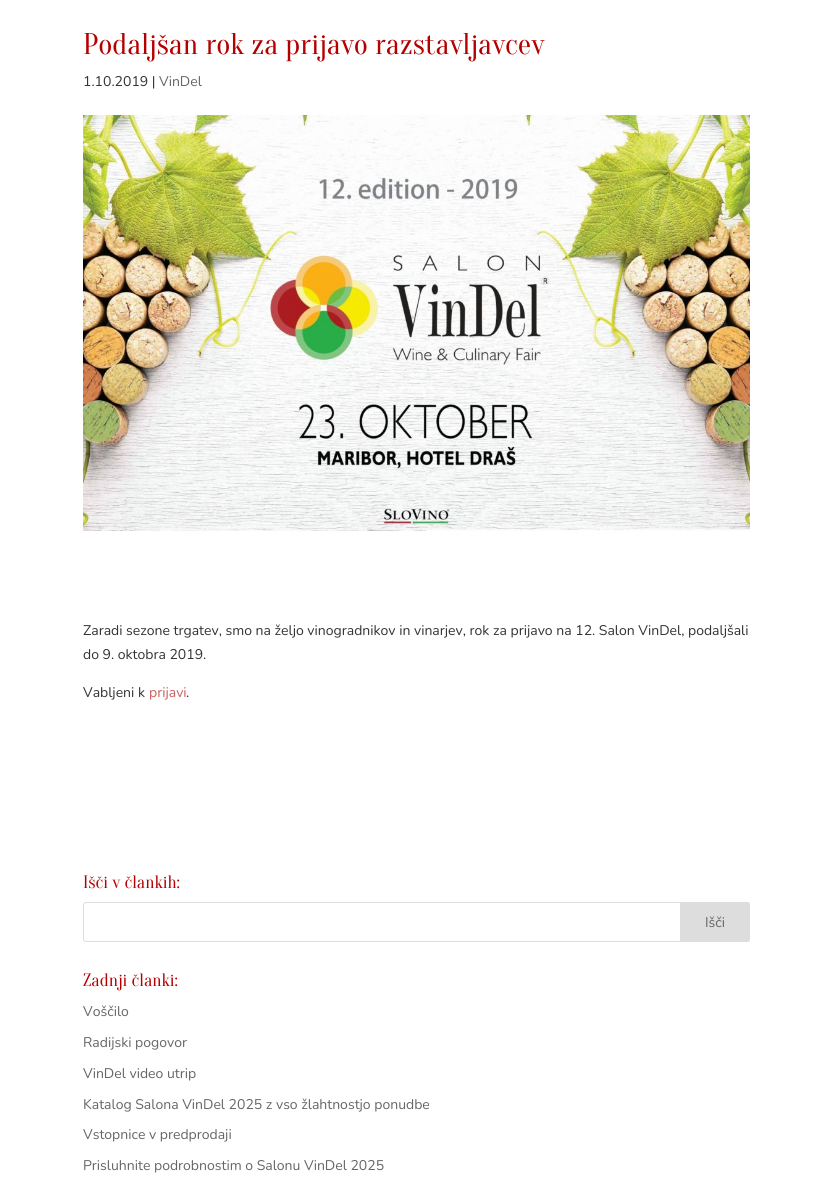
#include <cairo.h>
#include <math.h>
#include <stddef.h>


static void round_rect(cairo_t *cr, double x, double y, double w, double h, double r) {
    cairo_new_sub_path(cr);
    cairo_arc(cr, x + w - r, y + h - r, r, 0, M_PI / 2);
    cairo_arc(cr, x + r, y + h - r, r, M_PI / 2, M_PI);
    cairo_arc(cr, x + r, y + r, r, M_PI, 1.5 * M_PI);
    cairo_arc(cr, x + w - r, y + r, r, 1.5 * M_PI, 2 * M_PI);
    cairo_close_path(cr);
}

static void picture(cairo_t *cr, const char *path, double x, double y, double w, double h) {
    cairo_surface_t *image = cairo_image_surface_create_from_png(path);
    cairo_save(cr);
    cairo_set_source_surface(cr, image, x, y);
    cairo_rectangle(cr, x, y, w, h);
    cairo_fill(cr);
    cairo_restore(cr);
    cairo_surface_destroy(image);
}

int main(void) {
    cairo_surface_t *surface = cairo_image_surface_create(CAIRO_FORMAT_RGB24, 833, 1187);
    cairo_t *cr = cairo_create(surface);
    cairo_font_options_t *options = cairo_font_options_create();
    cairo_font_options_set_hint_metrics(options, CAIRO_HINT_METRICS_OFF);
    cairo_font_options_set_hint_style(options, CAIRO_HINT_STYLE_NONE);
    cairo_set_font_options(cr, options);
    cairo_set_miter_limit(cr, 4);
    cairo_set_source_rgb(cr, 1, 1, 1);
    cairo_paint(cr);
    cairo_select_font_face(cr, "Oranienbaum", CAIRO_FONT_SLANT_NORMAL, CAIRO_FONT_WEIGHT_NORMAL);
    cairo_set_font_size(cr, 30);
    cairo_set_source_rgb(cr, 0.71, 0, 0);
    cairo_move_to(cr, 83, 54);
    cairo_show_text(cr, "Podaljšan rok za prijavo razstavljavcev");
    cairo_select_font_face(cr, "Nunito", CAIRO_FONT_SLANT_NORMAL, CAIRO_FONT_WEIGHT_NORMAL);
    cairo_set_font_size(cr, 14);
    cairo_set_source_rgb(cr, 0.2, 0.2, 0.2);
    cairo_move_to(cr, 83, 86);
    cairo_show_text(cr, "1.10.2019 |");
    cairo_set_source_rgb(cr, 0.4, 0.4, 0.4);
    cairo_move_to(cr, 159, 86);
    cairo_show_text(cr, "VinDel");
    picture(cr, "img1.png", 83, 115, 667, 416);
    cairo_set_source_rgb(cr, 0.2, 0.2, 0.2);
    cairo_move_to(cr, 83, 635);
    cairo_show_text(cr, "Zaradi sezone trgatev, smo na željo vinogradnikov in vinarjev, rok za prijavo na 12. Salon VinDel, podaljšali");
    cairo_move_to(cr, 83, 659);
    cairo_show_text(cr, "do 9. oktobra 2019.");
    cairo_move_to(cr, 83, 697);
    cairo_show_text(cr, "Vabljeni k");
    cairo_set_source_rgb(cr, 0.804, 0.361, 0.361);
    cairo_move_to(cr, 149, 697);
    cairo_show_text(cr, "prijavi");
    cairo_set_source_rgb(cr, 0.2, 0.2, 0.2);
    cairo_move_to(cr, 186, 697);
    cairo_show_text(cr, ".");
    cairo_select_font_face(cr, "Oranienbaum", CAIRO_FONT_SLANT_NORMAL, CAIRO_FONT_WEIGHT_NORMAL);
    cairo_set_font_size(cr, 18);
    cairo_set_source_rgb(cr, 0.71, 0, 0);
    cairo_move_to(cr, 83, 888);
    cairo_show_text(cr, "Išči v člankih:");
    round_rect(cr, 83.5, 902.5, 666, 39, 2.5);
    cairo_set_source_rgb(cr, 0.867, 0.867, 0.867);
    cairo_set_line_width(cr, 1);
    cairo_stroke(cr);
    cairo_new_path(cr);
    cairo_move_to(cr, 680.5, 902.5);
    cairo_line_to(cr, 747, 902.5);
    cairo_curve_to(cr, 748.5, 902.5, 749.5, 903.5, 749.5, 905);
    cairo_line_to(cr, 749.5, 939);
    cairo_curve_to(cr, 749.5, 940.5, 748.5, 941.5, 747, 941.5);
    cairo_line_to(cr, 680.5, 941.5);
    cairo_close_path(cr);
    cairo_fill_preserve(cr);
    cairo_stroke(cr);
    cairo_select_font_face(cr, "Nunito", CAIRO_FONT_SLANT_NORMAL, CAIRO_FONT_WEIGHT_NORMAL);
    cairo_set_font_size(cr, 14);
    cairo_set_source_rgb(cr, 0.4, 0.4, 0.4);
    cairo_move_to(cr, 705, 927);
    cairo_show_text(cr, "Išči");
    cairo_select_font_face(cr, "Oranienbaum", CAIRO_FONT_SLANT_NORMAL, CAIRO_FONT_WEIGHT_NORMAL);
    cairo_set_font_size(cr, 18);
    cairo_set_source_rgb(cr, 0.71, 0, 0);
    cairo_move_to(cr, 83, 986);
    cairo_show_text(cr, "Zadnji članki:");
    cairo_select_font_face(cr, "Nunito", CAIRO_FONT_SLANT_NORMAL, CAIRO_FONT_WEIGHT_NORMAL);
    cairo_set_font_size(cr, 14);
    cairo_set_source_rgb(cr, 0.4, 0.4, 0.4);
    cairo_move_to(cr, 83, 1016);
    cairo_show_text(cr, "Voščilo");
    cairo_move_to(cr, 83, 1047);
    cairo_show_text(cr, "Radijski pogovor");
    cairo_move_to(cr, 83, 1078);
    cairo_show_text(cr, "VinDel video utrip");
    cairo_move_to(cr, 83, 1109);
    cairo_show_text(cr, "Katalog Salona VinDel 2025 z vso žlahtnostjo ponudbe");
    cairo_move_to(cr, 83, 1139);
    cairo_show_text(cr, "Vstopnice v predprodaji");
    cairo_move_to(cr, 83, 1170);
    cairo_show_text(cr, "Prisluhnite podrobnostim o Salonu VinDel 2025");
    cairo_surface_write_to_png(surface, "page.png");
    cairo_font_options_destroy(options);
    cairo_destroy(cr);
    cairo_surface_destroy(surface);
    return 0;
}
